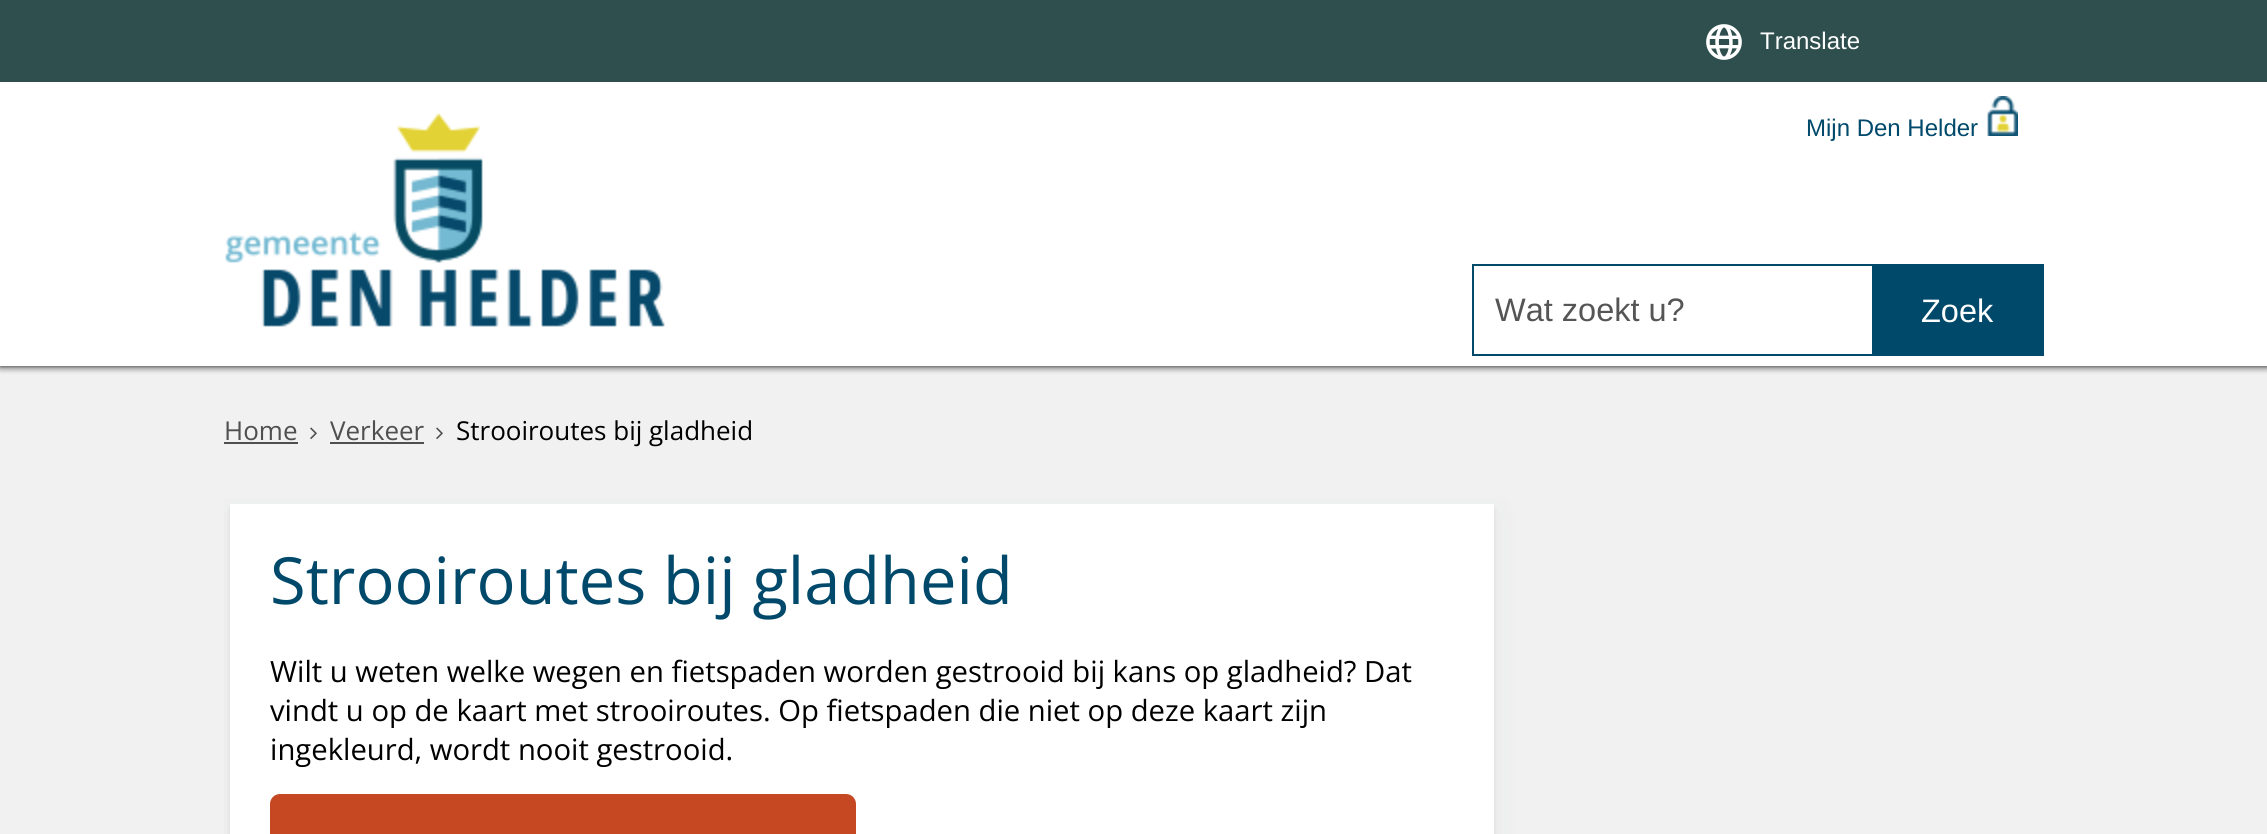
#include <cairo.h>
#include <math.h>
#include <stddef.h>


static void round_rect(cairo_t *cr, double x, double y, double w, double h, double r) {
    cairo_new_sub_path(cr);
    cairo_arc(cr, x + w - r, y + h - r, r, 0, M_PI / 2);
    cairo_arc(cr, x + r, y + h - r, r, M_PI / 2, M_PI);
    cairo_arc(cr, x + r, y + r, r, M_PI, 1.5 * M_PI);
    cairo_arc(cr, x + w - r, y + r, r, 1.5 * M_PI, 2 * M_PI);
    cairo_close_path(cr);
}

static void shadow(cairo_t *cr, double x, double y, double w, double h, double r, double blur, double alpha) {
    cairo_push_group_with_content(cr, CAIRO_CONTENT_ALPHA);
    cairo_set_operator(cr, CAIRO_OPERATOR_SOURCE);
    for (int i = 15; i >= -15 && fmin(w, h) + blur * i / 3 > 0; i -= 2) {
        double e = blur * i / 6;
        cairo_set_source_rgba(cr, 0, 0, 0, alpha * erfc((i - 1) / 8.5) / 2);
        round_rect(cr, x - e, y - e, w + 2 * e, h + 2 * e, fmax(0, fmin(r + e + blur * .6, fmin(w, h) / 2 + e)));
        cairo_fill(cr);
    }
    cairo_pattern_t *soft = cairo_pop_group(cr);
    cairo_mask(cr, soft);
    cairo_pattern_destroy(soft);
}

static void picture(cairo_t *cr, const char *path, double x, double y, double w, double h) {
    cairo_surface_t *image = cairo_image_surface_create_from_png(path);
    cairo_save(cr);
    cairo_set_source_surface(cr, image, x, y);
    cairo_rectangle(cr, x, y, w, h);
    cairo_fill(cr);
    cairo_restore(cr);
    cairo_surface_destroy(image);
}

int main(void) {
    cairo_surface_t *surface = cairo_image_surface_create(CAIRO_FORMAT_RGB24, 2267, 834);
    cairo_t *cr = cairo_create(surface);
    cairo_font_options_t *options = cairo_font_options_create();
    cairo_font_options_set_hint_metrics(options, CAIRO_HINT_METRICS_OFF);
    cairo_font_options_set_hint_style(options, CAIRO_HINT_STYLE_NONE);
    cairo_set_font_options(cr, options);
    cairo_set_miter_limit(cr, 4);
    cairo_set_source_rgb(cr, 1, 1, 1);
    cairo_paint(cr);
    cairo_set_source_rgb(cr, 0.945, 0.945, 0.945);
    cairo_rectangle(cr, 0, 366, 2267, 468);
    cairo_fill(cr);
    cairo_save(cr);
    cairo_rectangle(cr, 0, 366, 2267, 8);
    cairo_clip(cr);
    cairo_set_source_rgb(cr, 0, 0, 0);
    shadow(cr, 0, 0, 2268, 366, 0, 4, 1);
    cairo_restore(cr);
    cairo_set_source_rgb(cr, 0.184, 0.31, 0.31);
    cairo_rectangle(cr, 0, 0, 2267, 82);
    cairo_fill(cr);
    picture(cr, "img1.png", 1706, 24, 36, 36);
    cairo_select_font_face(cr, "Liberation Sans", CAIRO_FONT_SLANT_NORMAL, CAIRO_FONT_WEIGHT_NORMAL);
    cairo_set_font_size(cr, 24);
    cairo_set_source_rgb(cr, 1, 1, 1);
    cairo_move_to(cr, 1760, 49);
    cairo_show_text(cr, "Translate");
    picture(cr, "img2.png", 225, 113, 440, 214);
    cairo_set_source_rgb(cr, 0, 0.286, 0.42);
    cairo_move_to(cr, 1806, 136);
    cairo_show_text(cr, "Mijn Den Helder");
    picture(cr, "img3.png", 1987, 96, 31, 40);
    cairo_rectangle(cr, 1473, 265, 570, 90);
    cairo_stroke(cr);
    cairo_set_font_size(cr, 32.5);
    cairo_set_source_rgb(cr, 0.333, 0.333, 0.333);
    cairo_move_to(cr, 1495, 321);
    cairo_show_text(cr, "Wat zoekt u?");
    cairo_set_source_rgb(cr, 0, 0.286, 0.42);
    cairo_rectangle(cr, 1872, 266, 170, 88);
    cairo_fill(cr);
    cairo_set_source_rgb(cr, 1, 1, 1);
    cairo_move_to(cr, 1921, 322);
    cairo_show_text(cr, "Zoek");
    cairo_select_font_face(cr, "Open Sans", CAIRO_FONT_SLANT_NORMAL, CAIRO_FONT_WEIGHT_NORMAL);
    cairo_set_font_size(cr, 26);
    cairo_set_source_rgb(cr, 0.31, 0.31, 0.31);
    cairo_move_to(cr, 224, 440);
    cairo_show_text(cr, "Home");
    cairo_rectangle(cr, 224, 442, 74, 2);
    cairo_fill(cr);
    picture(cr, "img4.png", 310, 427, 7, 12);
    cairo_move_to(cr, 330, 440);
    cairo_show_text(cr, "Verkeer");
    cairo_rectangle(cr, 330, 442, 94, 2);
    cairo_fill(cr);
    picture(cr, "img4.png", 436, 427, 7, 12);
    cairo_set_source_rgb(cr, 0, 0, 0);
    cairo_move_to(cr, 456, 440);
    cairo_show_text(cr, "Strooiroutes bij gladheid");
    cairo_set_source_rgb(cr, 0.157, 0.173, 0.208);
    shadow(cr, 230, 508, 1264, 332, 0, 2, 0.08);
    cairo_save(cr);
    cairo_rectangle(cr, 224, 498, 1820, 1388);
    cairo_clip(cr);
    shadow(cr, 230, 512, 1264, 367, 0, 15, 0.06);
    cairo_restore(cr);
    cairo_set_source_rgb(cr, 1, 1, 1);
    cairo_rectangle(cr, 230, 504, 1264, 330);
    cairo_fill(cr);
    cairo_set_font_size(cr, 65);
    cairo_set_source_rgb(cr, 0, 0.286, 0.42);
    cairo_move_to(cr, 270, 604);
    cairo_show_text(cr, "Strooiroutes bij gladheid");
    cairo_set_font_size(cr, 29.25);
    cairo_set_source_rgb(cr, 0, 0, 0);
    cairo_move_to(cr, 270, 682);
    cairo_show_text(cr, "Wilt u weten welke wegen en fietspaden worden gestrooid bij kans op gladheid? Dat");
    cairo_move_to(cr, 270, 721);
    cairo_show_text(cr, "vindt u op de kaart met strooiroutes. Op fietspaden die niet op deze kaart zijn");
    cairo_move_to(cr, 270, 760);
    cairo_show_text(cr, "ingekleurd, wordt nooit gestrooid.");
    cairo_set_source_rgb(cr, 0.776, 0.282, 0.137);
    round_rect(cr, 270, 794, 586, 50, 10);
    cairo_fill(cr);
    cairo_surface_write_to_png(surface, "page.png");
    cairo_font_options_destroy(options);
    cairo_destroy(cr);
    cairo_surface_destroy(surface);
    return 0;
}
